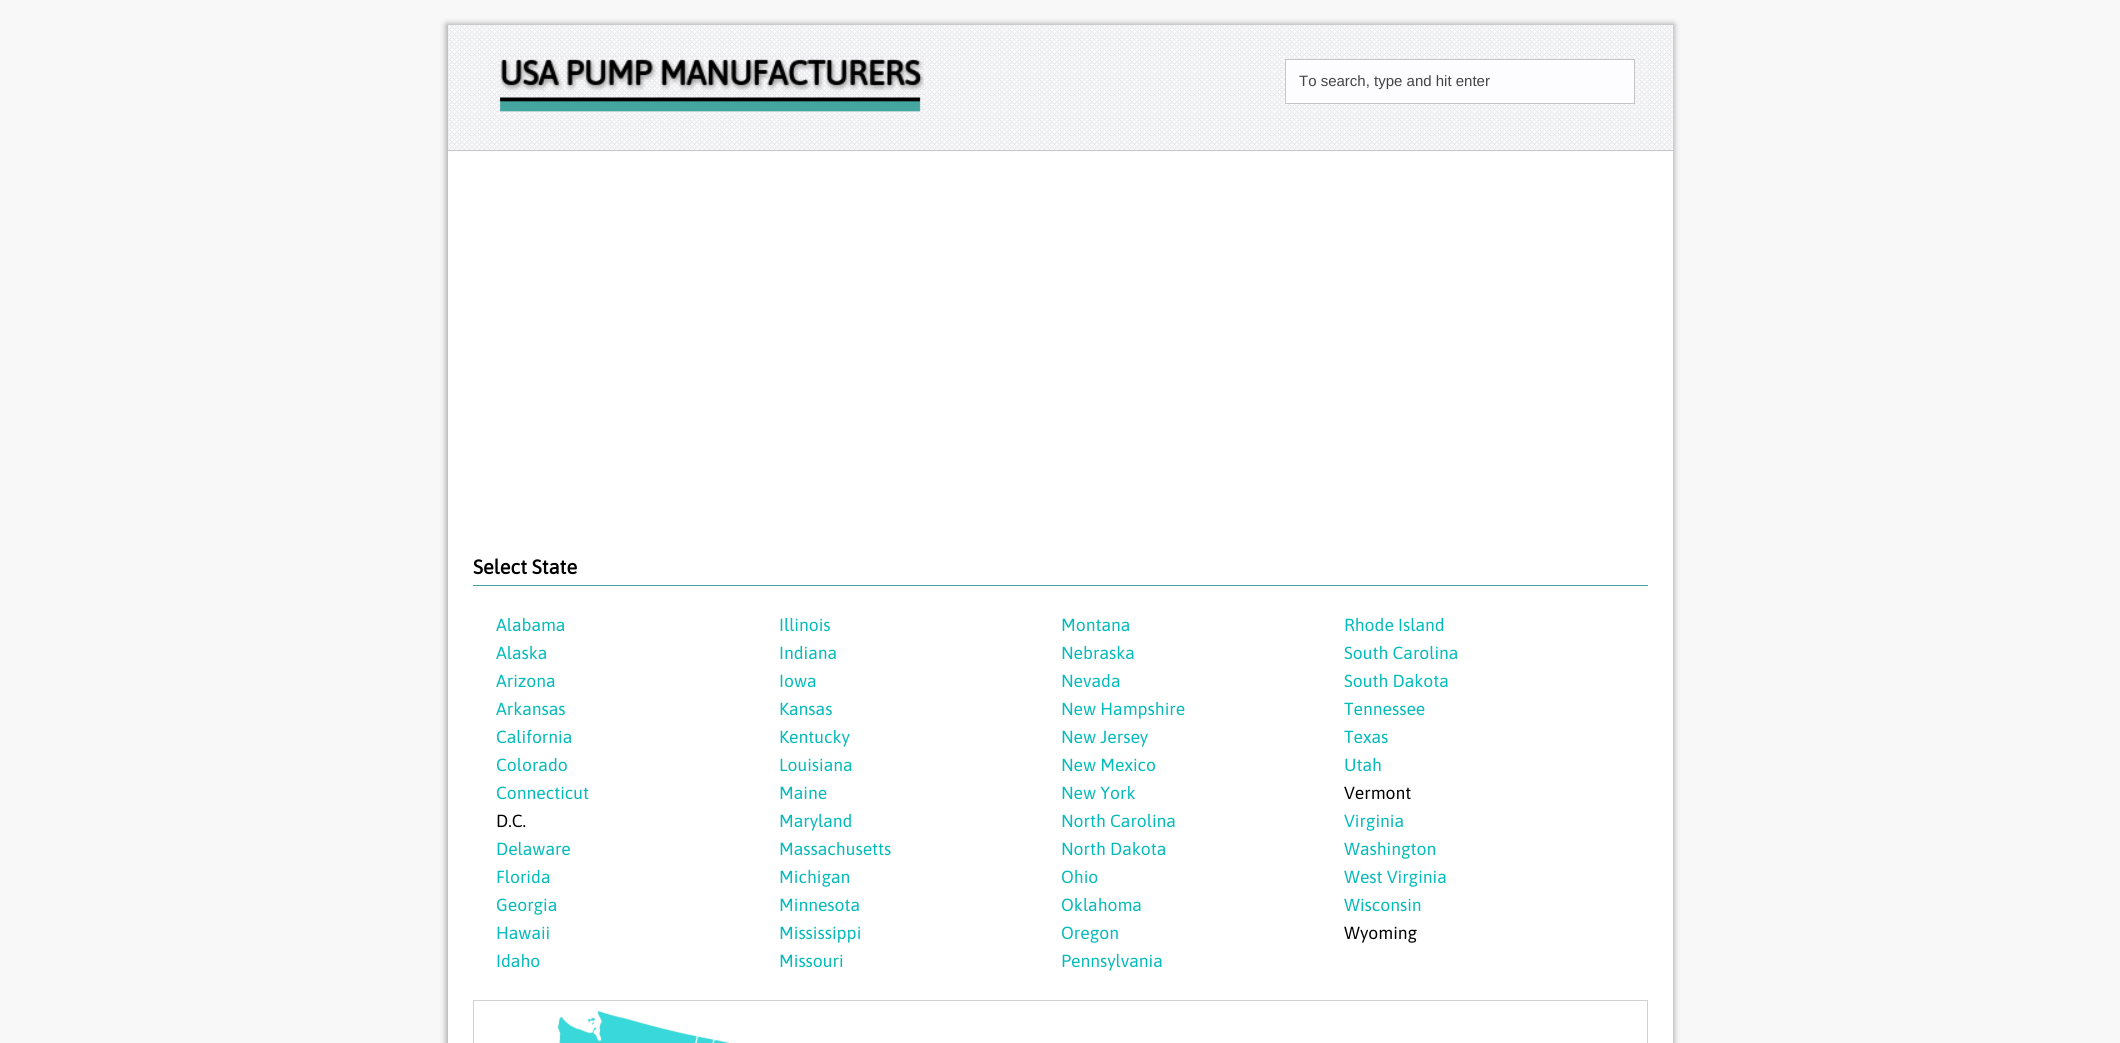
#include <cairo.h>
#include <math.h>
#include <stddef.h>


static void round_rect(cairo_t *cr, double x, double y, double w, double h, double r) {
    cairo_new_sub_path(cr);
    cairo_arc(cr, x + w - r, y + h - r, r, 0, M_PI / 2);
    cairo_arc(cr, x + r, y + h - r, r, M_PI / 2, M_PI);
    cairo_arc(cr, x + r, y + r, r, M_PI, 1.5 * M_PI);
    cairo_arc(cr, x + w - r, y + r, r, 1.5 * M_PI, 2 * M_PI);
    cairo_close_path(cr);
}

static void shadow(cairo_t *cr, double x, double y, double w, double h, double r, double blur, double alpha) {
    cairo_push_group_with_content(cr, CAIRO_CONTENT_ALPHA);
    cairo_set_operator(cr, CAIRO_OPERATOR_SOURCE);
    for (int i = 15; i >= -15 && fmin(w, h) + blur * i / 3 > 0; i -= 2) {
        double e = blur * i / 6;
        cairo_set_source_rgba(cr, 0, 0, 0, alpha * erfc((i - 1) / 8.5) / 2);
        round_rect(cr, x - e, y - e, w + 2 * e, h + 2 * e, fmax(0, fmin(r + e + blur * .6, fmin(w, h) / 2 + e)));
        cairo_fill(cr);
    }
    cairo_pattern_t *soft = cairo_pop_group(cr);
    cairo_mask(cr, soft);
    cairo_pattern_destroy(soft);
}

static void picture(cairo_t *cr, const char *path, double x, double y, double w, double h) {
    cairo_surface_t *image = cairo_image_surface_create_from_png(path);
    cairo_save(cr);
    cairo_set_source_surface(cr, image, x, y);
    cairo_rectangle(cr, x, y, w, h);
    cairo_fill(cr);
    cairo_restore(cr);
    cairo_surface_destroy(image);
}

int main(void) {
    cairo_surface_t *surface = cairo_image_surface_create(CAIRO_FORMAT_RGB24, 2120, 1043);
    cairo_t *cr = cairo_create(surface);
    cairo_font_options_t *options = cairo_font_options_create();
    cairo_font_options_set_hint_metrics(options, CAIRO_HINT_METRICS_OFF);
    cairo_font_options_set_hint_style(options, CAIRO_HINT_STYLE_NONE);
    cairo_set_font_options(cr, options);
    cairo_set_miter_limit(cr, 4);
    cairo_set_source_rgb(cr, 0.969, 0.969, 0.969);
    cairo_paint(cr);
    cairo_set_source_rgb(cr, 0.659, 0.659, 0.659);
    shadow(cr, 446, 24, 1228, 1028, 0, 3, 1);
    cairo_set_source_rgb(cr, 0.992, 0.992, 1);
    cairo_rectangle(cr, 448, 25, 1225, 125);
    cairo_fill(cr);
    cairo_set_source_rgb(cr, 1, 1, 1);
    cairo_rectangle(cr, 448, 151, 1225, 892);
    cairo_fill(cr);
    picture(cr, "img1.png", 448, 25, 1225, 127);
    cairo_set_source_rgb(cr, 0.769, 0.769, 0.769);
    cairo_rectangle(cr, 448, 150, 1225, 1);
    cairo_fill(cr);
    picture(cr, "img2.png", 497, 56, 427, 58);
    cairo_set_source_rgb(cr, 0.992, 0.992, 1);
    cairo_rectangle(cr, 1285.5, 59.5, 349, 44);
    cairo_fill_preserve(cr);
    cairo_set_source_rgb(cr, 0.769, 0.769, 0.769);
    cairo_set_line_width(cr, 1);
    cairo_stroke(cr);
    cairo_select_font_face(cr, "Liberation Sans", CAIRO_FONT_SLANT_NORMAL, CAIRO_FONT_WEIGHT_NORMAL);
    cairo_set_font_size(cr, 15);
    cairo_set_source_rgb(cr, 0.267, 0.267, 0.267);
    cairo_move_to(cr, 1299, 86);
    cairo_show_text(cr, "To search, type and hit enter");
    cairo_set_source_rgb(cr, 0.271, 0.647, 0.624);
    cairo_rectangle(cr, 473, 585, 1175, 1);
    cairo_fill(cr);
    cairo_select_font_face(cr, "Asap", CAIRO_FONT_SLANT_NORMAL, CAIRO_FONT_WEIGHT_BOLD);
    cairo_set_font_size(cr, 20);
    cairo_set_source_rgb(cr, 0, 0, 0);
    cairo_move_to(cr, 473, 574);
    cairo_show_text(cr, "Select State");
    cairo_select_font_face(cr, "Asap", CAIRO_FONT_SLANT_NORMAL, CAIRO_FONT_WEIGHT_NORMAL);
    cairo_set_font_size(cr, 17.5);
    cairo_set_source_rgb(cr, 0.02, 0.729, 0.729);
    cairo_move_to(cr, 496, 631);
    cairo_show_text(cr, "Alabama");
    cairo_move_to(cr, 496, 659);
    cairo_show_text(cr, "Alaska");
    cairo_move_to(cr, 496, 687);
    cairo_show_text(cr, "Arizona");
    cairo_move_to(cr, 496, 715);
    cairo_show_text(cr, "Arkansas");
    cairo_move_to(cr, 496, 743);
    cairo_show_text(cr, "California");
    cairo_move_to(cr, 496, 771);
    cairo_show_text(cr, "Colorado");
    cairo_move_to(cr, 496, 799);
    cairo_show_text(cr, "Connecticut");
    cairo_set_source_rgb(cr, 0, 0, 0);
    cairo_move_to(cr, 496, 827);
    cairo_show_text(cr, "D.C.");
    cairo_set_source_rgb(cr, 0.02, 0.729, 0.729);
    cairo_move_to(cr, 496, 855);
    cairo_show_text(cr, "Delaware");
    cairo_move_to(cr, 496, 883);
    cairo_show_text(cr, "Florida");
    cairo_move_to(cr, 496, 911);
    cairo_show_text(cr, "Georgia");
    cairo_move_to(cr, 496, 939);
    cairo_show_text(cr, "Hawaii");
    cairo_move_to(cr, 496, 967);
    cairo_show_text(cr, "Idaho");
    cairo_move_to(cr, 779, 631);
    cairo_show_text(cr, "Illinois");
    cairo_move_to(cr, 779, 659);
    cairo_show_text(cr, "Indiana");
    cairo_move_to(cr, 779, 687);
    cairo_show_text(cr, "Iowa");
    cairo_move_to(cr, 779, 715);
    cairo_show_text(cr, "Kansas");
    cairo_move_to(cr, 779, 743);
    cairo_show_text(cr, "Kentucky");
    cairo_move_to(cr, 779, 771);
    cairo_show_text(cr, "Louisiana");
    cairo_move_to(cr, 779, 799);
    cairo_show_text(cr, "Maine");
    cairo_move_to(cr, 779, 827);
    cairo_show_text(cr, "Maryland");
    cairo_move_to(cr, 779, 855);
    cairo_show_text(cr, "Massachusetts");
    cairo_move_to(cr, 779, 883);
    cairo_show_text(cr, "Michigan");
    cairo_move_to(cr, 779, 911);
    cairo_show_text(cr, "Minnesota");
    cairo_move_to(cr, 779, 939);
    cairo_show_text(cr, "Mississippi");
    cairo_move_to(cr, 779, 967);
    cairo_show_text(cr, "Missouri");
    cairo_move_to(cr, 1061, 631);
    cairo_show_text(cr, "Montana");
    cairo_move_to(cr, 1061, 659);
    cairo_show_text(cr, "Nebraska");
    cairo_move_to(cr, 1061, 687);
    cairo_show_text(cr, "Nevada");
    cairo_move_to(cr, 1061, 715);
    cairo_show_text(cr, "New Hampshire");
    cairo_move_to(cr, 1061, 743);
    cairo_show_text(cr, "New Jersey");
    cairo_move_to(cr, 1061, 771);
    cairo_show_text(cr, "New Mexico");
    cairo_move_to(cr, 1061, 799);
    cairo_show_text(cr, "New York");
    cairo_move_to(cr, 1061, 827);
    cairo_show_text(cr, "North Carolina");
    cairo_move_to(cr, 1061, 855);
    cairo_show_text(cr, "North Dakota");
    cairo_move_to(cr, 1061, 883);
    cairo_show_text(cr, "Ohio");
    cairo_move_to(cr, 1061, 911);
    cairo_show_text(cr, "Oklahoma");
    cairo_move_to(cr, 1061, 939);
    cairo_show_text(cr, "Oregon");
    cairo_move_to(cr, 1061, 967);
    cairo_show_text(cr, "Pennsylvania");
    cairo_move_to(cr, 1344, 631);
    cairo_show_text(cr, "Rhode Island");
    cairo_move_to(cr, 1344, 659);
    cairo_show_text(cr, "South Carolina");
    cairo_move_to(cr, 1344, 687);
    cairo_show_text(cr, "South Dakota");
    cairo_move_to(cr, 1344, 715);
    cairo_show_text(cr, "Tennessee");
    cairo_move_to(cr, 1344, 743);
    cairo_show_text(cr, "Texas");
    cairo_move_to(cr, 1344, 771);
    cairo_show_text(cr, "Utah");
    cairo_set_source_rgb(cr, 0, 0, 0);
    cairo_move_to(cr, 1344, 799);
    cairo_show_text(cr, "Vermont");
    cairo_set_source_rgb(cr, 0.02, 0.729, 0.729);
    cairo_move_to(cr, 1344, 827);
    cairo_show_text(cr, "Virginia");
    cairo_move_to(cr, 1344, 855);
    cairo_show_text(cr, "Washington");
    cairo_move_to(cr, 1344, 883);
    cairo_show_text(cr, "West Virginia");
    cairo_move_to(cr, 1344, 911);
    cairo_show_text(cr, "Wisconsin");
    cairo_set_source_rgb(cr, 0, 0, 0);
    cairo_move_to(cr, 1344, 939);
    cairo_show_text(cr, "Wyoming");
    cairo_rectangle(cr, 473.5, 1000.5, 1174, 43);
    cairo_set_source_rgb(cr, 0.816, 0.82, 0.824);
    cairo_stroke(cr);
    picture(cr, "img3.png", 557, 1010, 174, 33);
    cairo_surface_write_to_png(surface, "page.png");
    cairo_font_options_destroy(options);
    cairo_destroy(cr);
    cairo_surface_destroy(surface);
    return 0;
}
